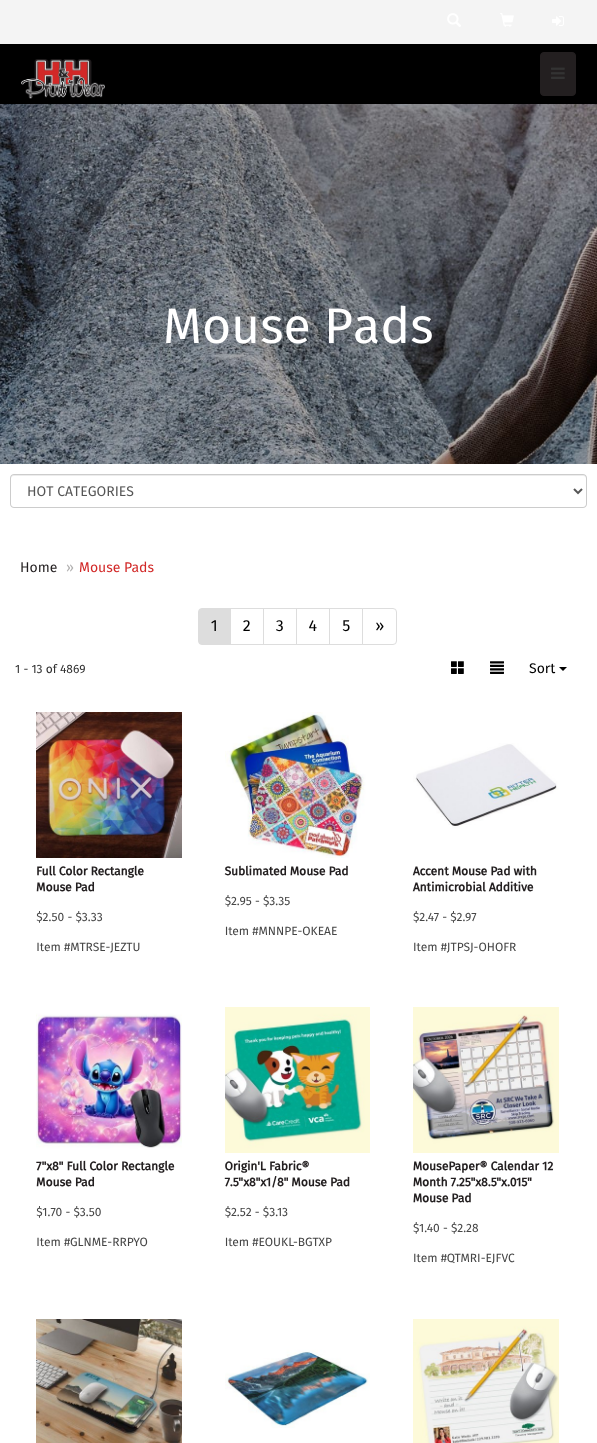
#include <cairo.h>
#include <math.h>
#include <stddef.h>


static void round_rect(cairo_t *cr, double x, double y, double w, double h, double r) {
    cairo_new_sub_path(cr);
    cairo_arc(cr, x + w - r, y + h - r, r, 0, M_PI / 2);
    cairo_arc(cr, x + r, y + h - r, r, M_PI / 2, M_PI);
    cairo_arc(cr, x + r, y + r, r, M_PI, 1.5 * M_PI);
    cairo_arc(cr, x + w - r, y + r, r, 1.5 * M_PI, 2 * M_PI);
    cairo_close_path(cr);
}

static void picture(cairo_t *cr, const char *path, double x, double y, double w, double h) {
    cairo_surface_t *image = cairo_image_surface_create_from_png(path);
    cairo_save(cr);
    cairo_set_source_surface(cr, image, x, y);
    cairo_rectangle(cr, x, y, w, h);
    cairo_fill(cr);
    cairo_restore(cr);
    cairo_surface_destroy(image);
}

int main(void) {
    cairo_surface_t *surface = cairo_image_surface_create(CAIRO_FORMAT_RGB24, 597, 1443);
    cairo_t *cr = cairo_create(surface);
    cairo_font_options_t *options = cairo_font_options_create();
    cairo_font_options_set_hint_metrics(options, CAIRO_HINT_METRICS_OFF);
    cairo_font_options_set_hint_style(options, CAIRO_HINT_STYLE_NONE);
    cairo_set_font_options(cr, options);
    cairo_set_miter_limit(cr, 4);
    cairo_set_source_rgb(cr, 0.957, 0.957, 0.957);
    cairo_paint(cr);
    picture(cr, "img1.png", 447, 13, 14, 14);
    picture(cr, "img2.png", 500, 13, 14, 14);
    picture(cr, "img3.png", 552, 16, 12, 10);
    cairo_set_source_rgb(cr, 0, 0, 0);
    cairo_rectangle(cr, 0, 44, 597, 60);
    cairo_fill(cr);
    picture(cr, "img4.png", 21, 59, 84, 40);
    cairo_set_source_rgb(cr, 0.137, 0.122, 0.125);
    round_rect(cr, 540.5, 52.5, 35, 43, 3.5);
    cairo_fill_preserve(cr);
    cairo_set_line_width(cr, 1);
    cairo_stroke(cr);
    picture(cr, "img5.png", 551, 67, 14, 12);
    picture(cr, "img6.png", 0, 104, 597, 360);
    cairo_select_font_face(cr, "Fira Sans", CAIRO_FONT_SLANT_NORMAL, CAIRO_FONT_WEIGHT_NORMAL);
    cairo_set_font_size(cr, 50);
    cairo_set_source_rgb(cr, 1, 1, 1);
    cairo_move_to(cr, 163, 343);
    cairo_show_text(cr, "Mouse Pads");
    cairo_rectangle(cr, 0, 464, 597, 979);
    cairo_fill(cr);
    cairo_set_source_rgb(cr, 0.925, 0.925, 0.925);
    cairo_new_path(cr);
    cairo_move_to(cr, 14, 476);
    cairo_line_to(cr, 583, 476);
    cairo_curve_to(cr, 585, 476, 586, 477, 586, 479);
    cairo_line_to(cr, 586, 478);
    cairo_curve_to(cr, 586, 476, 585, 475, 583, 475);
    cairo_line_to(cr, 14, 475);
    cairo_curve_to(cr, 12, 475, 11, 476, 11, 478);
    cairo_line_to(cr, 11, 479);
    cairo_curve_to(cr, 11, 477, 12, 476, 14, 476);
    cairo_close_path(cr);
    cairo_fill(cr);
    round_rect(cr, 10.5, 474.5, 576, 33, 3.5);
    cairo_set_source_rgb(cr, 0.8, 0.8, 0.8);
    cairo_stroke(cr);
    cairo_new_path(cr);
    cairo_move_to(cr, 574, 489);
    cairo_line_to(cr, 578, 493);
    cairo_line_to(cr, 582, 489);
    cairo_set_source_rgb(cr, 0.333, 0.333, 0.333);
    cairo_set_line_width(cr, 2);
    cairo_stroke(cr);
    cairo_set_font_size(cr, 14);
    cairo_move_to(cr, 27, 496);
    cairo_show_text(cr, "HOT CATEGORIES");
    picture(cr, "img7.png", 15, 561, 552, 882);
    cairo_surface_write_to_png(surface, "page.png");
    cairo_font_options_destroy(options);
    cairo_destroy(cr);
    cairo_surface_destroy(surface);
    return 0;
}
